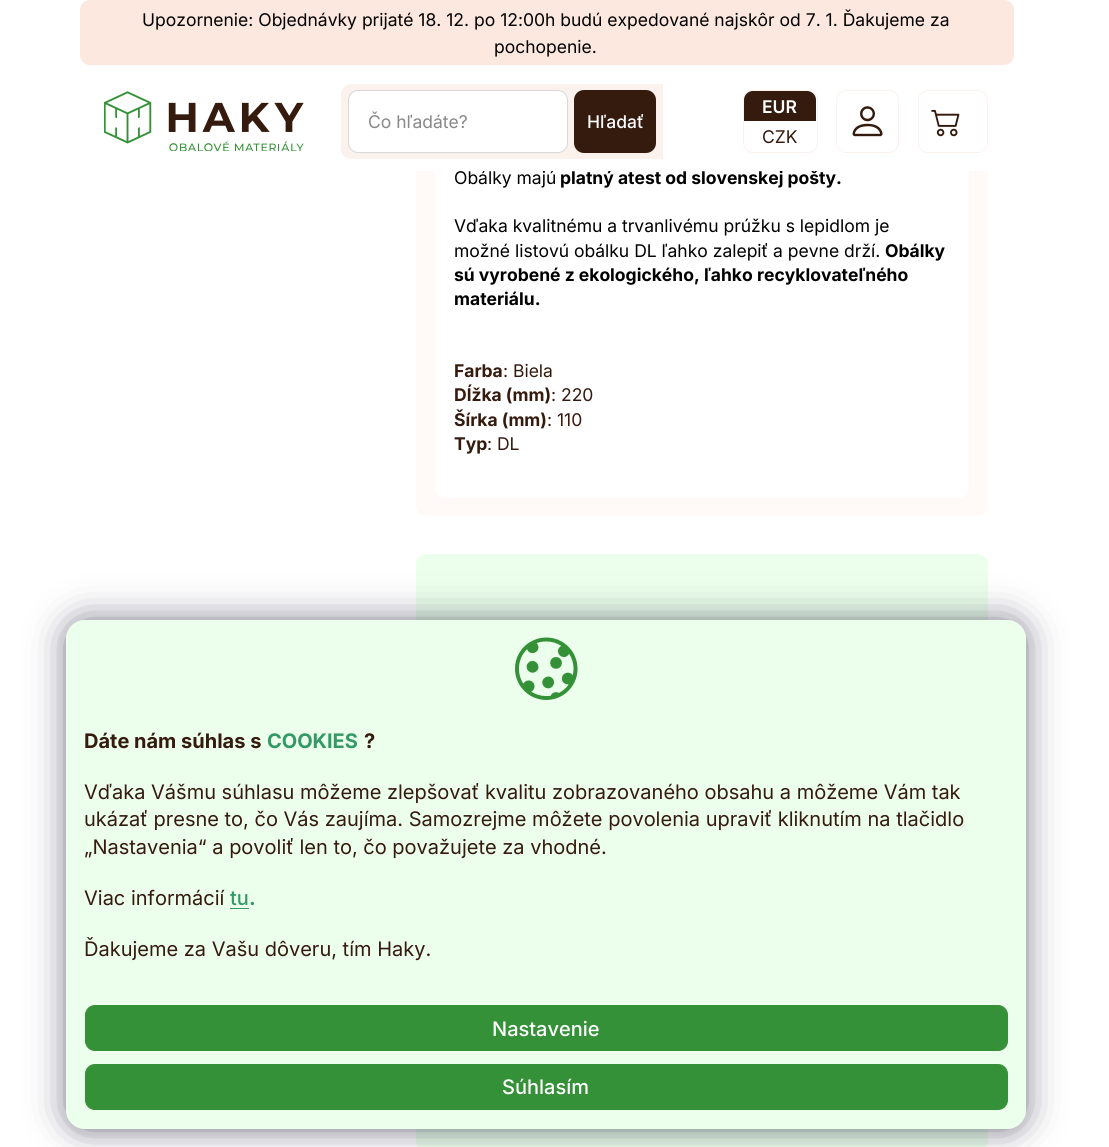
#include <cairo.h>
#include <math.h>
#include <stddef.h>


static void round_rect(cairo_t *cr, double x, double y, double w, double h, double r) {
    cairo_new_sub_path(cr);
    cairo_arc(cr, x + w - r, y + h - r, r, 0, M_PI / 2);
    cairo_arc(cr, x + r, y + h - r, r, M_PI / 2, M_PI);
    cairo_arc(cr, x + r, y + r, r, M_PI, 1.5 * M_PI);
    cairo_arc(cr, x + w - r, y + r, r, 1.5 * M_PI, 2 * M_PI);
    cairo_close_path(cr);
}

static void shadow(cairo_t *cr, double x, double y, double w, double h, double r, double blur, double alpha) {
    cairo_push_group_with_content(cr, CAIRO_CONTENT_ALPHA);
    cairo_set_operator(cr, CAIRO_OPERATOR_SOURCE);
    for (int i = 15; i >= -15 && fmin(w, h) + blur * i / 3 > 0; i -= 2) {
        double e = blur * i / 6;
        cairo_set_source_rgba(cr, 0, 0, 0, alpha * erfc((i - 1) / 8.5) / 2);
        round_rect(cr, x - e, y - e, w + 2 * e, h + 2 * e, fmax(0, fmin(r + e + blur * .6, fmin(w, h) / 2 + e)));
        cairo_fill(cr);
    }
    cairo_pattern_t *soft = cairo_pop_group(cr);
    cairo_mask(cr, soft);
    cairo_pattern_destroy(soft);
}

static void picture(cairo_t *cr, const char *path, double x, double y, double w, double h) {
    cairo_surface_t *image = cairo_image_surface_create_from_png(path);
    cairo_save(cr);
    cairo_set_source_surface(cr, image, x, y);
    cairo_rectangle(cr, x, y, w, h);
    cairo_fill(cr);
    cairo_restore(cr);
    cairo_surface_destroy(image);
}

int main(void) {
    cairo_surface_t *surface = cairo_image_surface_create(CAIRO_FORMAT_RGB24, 1109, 1147);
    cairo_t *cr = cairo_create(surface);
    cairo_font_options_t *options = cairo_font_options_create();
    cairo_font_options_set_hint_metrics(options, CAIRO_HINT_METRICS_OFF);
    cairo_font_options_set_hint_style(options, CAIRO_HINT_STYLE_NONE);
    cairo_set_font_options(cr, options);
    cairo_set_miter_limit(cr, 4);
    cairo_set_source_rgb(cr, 1, 1, 1);
    cairo_paint(cr);
    cairo_set_source_rgb(cr, 1, 0.98, 0.969);
    round_rect(cr, 416, -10, 572, 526, 10);
    cairo_fill(cr);
    cairo_set_source_rgb(cr, 1, 1, 1);
    cairo_new_path(cr);
    cairo_move_to(cr, 435, -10);
    cairo_line_to(cr, 969, -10);
    cairo_line_to(cr, 969, 488);
    cairo_curve_to(cr, 969, 493.5, 964.5, 498, 959, 498);
    cairo_line_to(cr, 445, 498);
    cairo_curve_to(cr, 439.5, 498, 435, 493.5, 435, 488);
    cairo_close_path(cr);
    cairo_fill(cr);
    cairo_select_font_face(cr, "Inter", CAIRO_FONT_SLANT_NORMAL, CAIRO_FONT_WEIGHT_NORMAL);
    cairo_set_font_size(cr, 17.5);
    cairo_set_source_rgb(cr, 0, 0, 0);
    cairo_move_to(cr, 454, 184);
    cairo_show_text(cr, "Obálky majú");
    cairo_select_font_face(cr, "Inter", CAIRO_FONT_SLANT_NORMAL, CAIRO_FONT_WEIGHT_BOLD);
    cairo_move_to(cr, 560, 184);
    cairo_show_text(cr, "platný atest od slovenskej pošty.");
    cairo_set_source_rgb(cr, 1, 1, 1);
    cairo_rectangle(cr, 416, 0, 572, 171);
    cairo_fill(cr);
    cairo_set_source_rgb(cr, 0.992, 0.91, 0.875);
    round_rect(cr, 80, 0, 934, 65, 10);
    cairo_fill(cr);
    cairo_select_font_face(cr, "Inter", CAIRO_FONT_SLANT_NORMAL, CAIRO_FONT_WEIGHT_NORMAL);
    cairo_set_source_rgb(cr, 0, 0, 0);
    cairo_move_to(cr, 142, 26);
    cairo_show_text(cr, "Upozornenie: Objednávky prijaté 18. 12. po 12:00h budú expedované najskôr od 7. 1. Ďakujeme za");
    cairo_move_to(cr, 494, 53);
    cairo_show_text(cr, "pochopenie.");
    picture(cr, "img1.png", 104, 91, 200, 60);
    cairo_set_source_rgb(cr, 0.988, 0.949, 0.929);
    cairo_new_path(cr);
    cairo_move_to(cr, 351, 84);
    cairo_line_to(cr, 663, 84);
    cairo_line_to(cr, 663, 159);
    cairo_line_to(cr, 351, 159);
    cairo_curve_to(cr, 345.5, 159, 341, 154.5, 341, 149);
    cairo_line_to(cr, 341, 94);
    cairo_curve_to(cr, 341, 88.5, 345.5, 84, 351, 84);
    cairo_close_path(cr);
    cairo_fill(cr);
    cairo_set_source_rgb(cr, 1, 1, 1);
    round_rect(cr, 348.5, 90.5, 219, 62, 9.5);
    cairo_fill_preserve(cr);
    cairo_set_source_rgb(cr, 0.847, 0.847, 0.847);
    cairo_set_line_width(cr, 1);
    cairo_stroke(cr);
    cairo_set_source_rgb(cr, 0.533, 0.533, 0.533);
    cairo_move_to(cr, 368, 128);
    cairo_show_text(cr, "Čo hľadáte?");
    cairo_set_source_rgb(cr, 0.208, 0.102, 0.055);
    round_rect(cr, 574, 90, 82, 63, 10);
    cairo_fill(cr);
    cairo_select_font_face(cr, "Inter Medium", CAIRO_FONT_SLANT_NORMAL, CAIRO_FONT_WEIGHT_NORMAL);
    cairo_set_source_rgb(cr, 1, 1, 1);
    cairo_move_to(cr, 587, 128);
    cairo_show_text(cr, "Hľadať");
    round_rect(cr, 743.5, 90.5, 74, 62, 9.5);
    cairo_set_source_rgb(cr, 0.988, 0.949, 0.929);
    cairo_stroke(cr);
    cairo_set_source_rgb(cr, 0.208, 0.102, 0.055);
    cairo_new_path(cr);
    cairo_move_to(cr, 753, 91);
    cairo_line_to(cr, 807, 91);
    cairo_curve_to(cr, 812, 91, 816, 95, 816, 100);
    cairo_line_to(cr, 816, 121);
    cairo_line_to(cr, 744, 121);
    cairo_line_to(cr, 744, 100);
    cairo_curve_to(cr, 744, 95, 748, 91, 753, 91);
    cairo_close_path(cr);
    cairo_fill(cr);
    cairo_select_font_face(cr, "Inter SemiBold", CAIRO_FONT_SLANT_NORMAL, CAIRO_FONT_WEIGHT_NORMAL);
    cairo_set_source_rgb(cr, 1, 1, 1);
    cairo_move_to(cr, 762, 113);
    cairo_show_text(cr, "EUR");
    cairo_select_font_face(cr, "Inter", CAIRO_FONT_SLANT_NORMAL, CAIRO_FONT_WEIGHT_NORMAL);
    cairo_set_source_rgb(cr, 0.208, 0.102, 0.055);
    cairo_move_to(cr, 762, 143);
    cairo_show_text(cr, "CZK");
    round_rect(cr, 836.5, 90.5, 62, 62, 9.5);
    cairo_set_source_rgb(cr, 0.988, 0.949, 0.929);
    cairo_stroke(cr);
    picture(cr, "img2.png", 852, 106, 31, 31);
    round_rect(cr, 918.5, 90.5, 69, 62, 9.5);
    cairo_stroke(cr);
    picture(cr, "img3.png", 931, 109, 29, 28);
    cairo_set_source_rgb(cr, 0, 0, 0);
    cairo_move_to(cr, 454, 232);
    cairo_show_text(cr, "Vďaka kvalitnému a trvanlivému prúžku s lepidlom je");
    cairo_move_to(cr, 454, 257);
    cairo_show_text(cr, "možné listovú obálku DL ľahko zalepiť a pevne drží.");
    cairo_select_font_face(cr, "Inter", CAIRO_FONT_SLANT_NORMAL, CAIRO_FONT_WEIGHT_BOLD);
    cairo_move_to(cr, 885, 257);
    cairo_show_text(cr, "Obálky");
    cairo_move_to(cr, 454, 281);
    cairo_show_text(cr, "sú vyrobené z ekologického, ľahko recyklovateľného");
    cairo_move_to(cr, 454, 305);
    cairo_show_text(cr, "materiálu.");
    cairo_set_source_rgb(cr, 0.208, 0.102, 0.055);
    cairo_move_to(cr, 454, 377);
    cairo_show_text(cr, "Farba");
    cairo_select_font_face(cr, "Inter", CAIRO_FONT_SLANT_NORMAL, CAIRO_FONT_WEIGHT_NORMAL);
    cairo_move_to(cr, 503, 377);
    cairo_show_text(cr, ": Biela");
    cairo_select_font_face(cr, "Inter", CAIRO_FONT_SLANT_NORMAL, CAIRO_FONT_WEIGHT_BOLD);
    cairo_move_to(cr, 454, 401);
    cairo_show_text(cr, "Dĺžka (mm)");
    cairo_select_font_face(cr, "Inter", CAIRO_FONT_SLANT_NORMAL, CAIRO_FONT_WEIGHT_NORMAL);
    cairo_move_to(cr, 551, 401);
    cairo_show_text(cr, ": 220");
    cairo_select_font_face(cr, "Inter", CAIRO_FONT_SLANT_NORMAL, CAIRO_FONT_WEIGHT_BOLD);
    cairo_move_to(cr, 454, 426);
    cairo_show_text(cr, "Šírka (mm)");
    cairo_select_font_face(cr, "Inter", CAIRO_FONT_SLANT_NORMAL, CAIRO_FONT_WEIGHT_NORMAL);
    cairo_move_to(cr, 547, 426);
    cairo_show_text(cr, ": 110");
    cairo_select_font_face(cr, "Inter", CAIRO_FONT_SLANT_NORMAL, CAIRO_FONT_WEIGHT_BOLD);
    cairo_move_to(cr, 454, 450);
    cairo_show_text(cr, "Typ");
    cairo_select_font_face(cr, "Inter", CAIRO_FONT_SLANT_NORMAL, CAIRO_FONT_WEIGHT_NORMAL);
    cairo_move_to(cr, 487, 450);
    cairo_show_text(cr, ": DL");
    cairo_set_source_rgb(cr, 0.922, 1, 0.925);
    round_rect(cr, 416, 554, 572, 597, 10);
    cairo_fill(cr);
    cairo_set_source_rgb(cr, 0, 0, 0);
    shadow(cr, 66, 614, 960, 509, 19, 6, 0.05);
    shadow(cr, 66, 626, 960, 509, 19, 6, 0.1);
    cairo_set_source_rgb(cr, 0.922, 1, 0.925);
    round_rect(cr, 66, 620, 960, 509, 19);
    cairo_fill(cr);
    cairo_save(cr);
    cairo_set_fill_rule(cr, CAIRO_FILL_RULE_EVEN_ODD);
    cairo_new_path(cr);
    cairo_move_to(cr, 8, 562);
    cairo_line_to(cr, 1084, 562);
    cairo_line_to(cr, 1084, 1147);
    cairo_line_to(cr, 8, 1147);
    cairo_close_path(cr);
    cairo_move_to(cr, 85, 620);
    cairo_line_to(cr, 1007, 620);
    cairo_curve_to(cr, 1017.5, 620, 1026, 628.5, 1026, 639);
    cairo_line_to(cr, 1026, 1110);
    cairo_curve_to(cr, 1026, 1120.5, 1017.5, 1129, 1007, 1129);
    cairo_line_to(cr, 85, 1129);
    cairo_curve_to(cr, 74.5, 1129, 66, 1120.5, 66, 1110);
    cairo_line_to(cr, 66, 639);
    cairo_curve_to(cr, 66, 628.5, 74.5, 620, 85, 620);
    cairo_close_path(cr);
    cairo_clip(cr);
    cairo_set_source_rgb(cr, 0.106, 0.098, 0.224);
    shadow(cr, 66, 620, 960, 509, 19, 19, 0.5);
    cairo_restore(cr);
    picture(cr, "img4.png", 515, 637, 63, 63);
    cairo_select_font_face(cr, "Inter", CAIRO_FONT_SLANT_NORMAL, CAIRO_FONT_WEIGHT_BOLD);
    cairo_set_font_size(cr, 20);
    cairo_set_source_rgb(cr, 0.208, 0.102, 0.055);
    cairo_move_to(cr, 84, 748);
    cairo_show_text(cr, "Dáte nám súhlas s");
    cairo_set_source_rgb(cr, 0.2, 0.6, 0.4);
    cairo_move_to(cr, 267, 748);
    cairo_show_text(cr, "COOKIES");
    cairo_set_source_rgb(cr, 0.208, 0.102, 0.055);
    cairo_move_to(cr, 364, 748);
    cairo_show_text(cr, "?");
    cairo_select_font_face(cr, "Inter", CAIRO_FONT_SLANT_NORMAL, CAIRO_FONT_WEIGHT_NORMAL);
    cairo_move_to(cr, 84, 799);
    cairo_show_text(cr, "Vďaka Vášmu súhlasu môžeme zlepšovať kvalitu zobrazovaného obsahu a môžeme Vám tak");
    cairo_move_to(cr, 84, 826);
    cairo_show_text(cr, "ukázať presne to, čo Vás zaujíma. Samozrejme môžete povolenia upraviť kliknutím na tlačidlo");
    cairo_move_to(cr, 84, 854);
    cairo_show_text(cr, "„Nastavenia“ a povoliť len to, čo považujete za vhodné.");
    cairo_move_to(cr, 84, 905);
    cairo_show_text(cr, "Viac informácií");
    cairo_select_font_face(cr, "Inter Medium", CAIRO_FONT_SLANT_NORMAL, CAIRO_FONT_WEIGHT_NORMAL);
    cairo_set_source_rgb(cr, 0.2, 0.6, 0.4);
    cairo_move_to(cr, 230, 905);
    cairo_show_text(cr, "tu");
    cairo_select_font_face(cr, "Inter", CAIRO_FONT_SLANT_NORMAL, CAIRO_FONT_WEIGHT_BOLD);
    cairo_move_to(cr, 249, 905);
    cairo_show_text(cr, ".");
    cairo_rectangle(cr, 230, 908, 19, 1);
    cairo_fill(cr);
    cairo_select_font_face(cr, "Inter", CAIRO_FONT_SLANT_NORMAL, CAIRO_FONT_WEIGHT_NORMAL);
    cairo_set_source_rgb(cr, 0.208, 0.102, 0.055);
    cairo_move_to(cr, 84, 956);
    cairo_show_text(cr, "Ďakujeme za Vašu dôveru, tím Haky.");
    cairo_set_source_rgb(cr, 0.208, 0.569, 0.22);
    round_rect(cr, 85.5, 1005.5, 922, 45, 9.5);
    cairo_fill_preserve(cr);
    cairo_stroke(cr);
    cairo_select_font_face(cr, "Inter Medium", CAIRO_FONT_SLANT_NORMAL, CAIRO_FONT_WEIGHT_NORMAL);
    cairo_set_source_rgb(cr, 1, 1, 1);
    cairo_move_to(cr, 492, 1036);
    cairo_show_text(cr, "Nastavenie");
    cairo_set_source_rgb(cr, 0.208, 0.569, 0.22);
    round_rect(cr, 85.5, 1064.5, 922, 45, 9.5);
    cairo_fill_preserve(cr);
    cairo_stroke(cr);
    cairo_set_source_rgb(cr, 1, 1, 1);
    cairo_move_to(cr, 502, 1094);
    cairo_show_text(cr, "Súhlasím");
    cairo_surface_write_to_png(surface, "page.png");
    cairo_font_options_destroy(options);
    cairo_destroy(cr);
    cairo_surface_destroy(surface);
    return 0;
}
